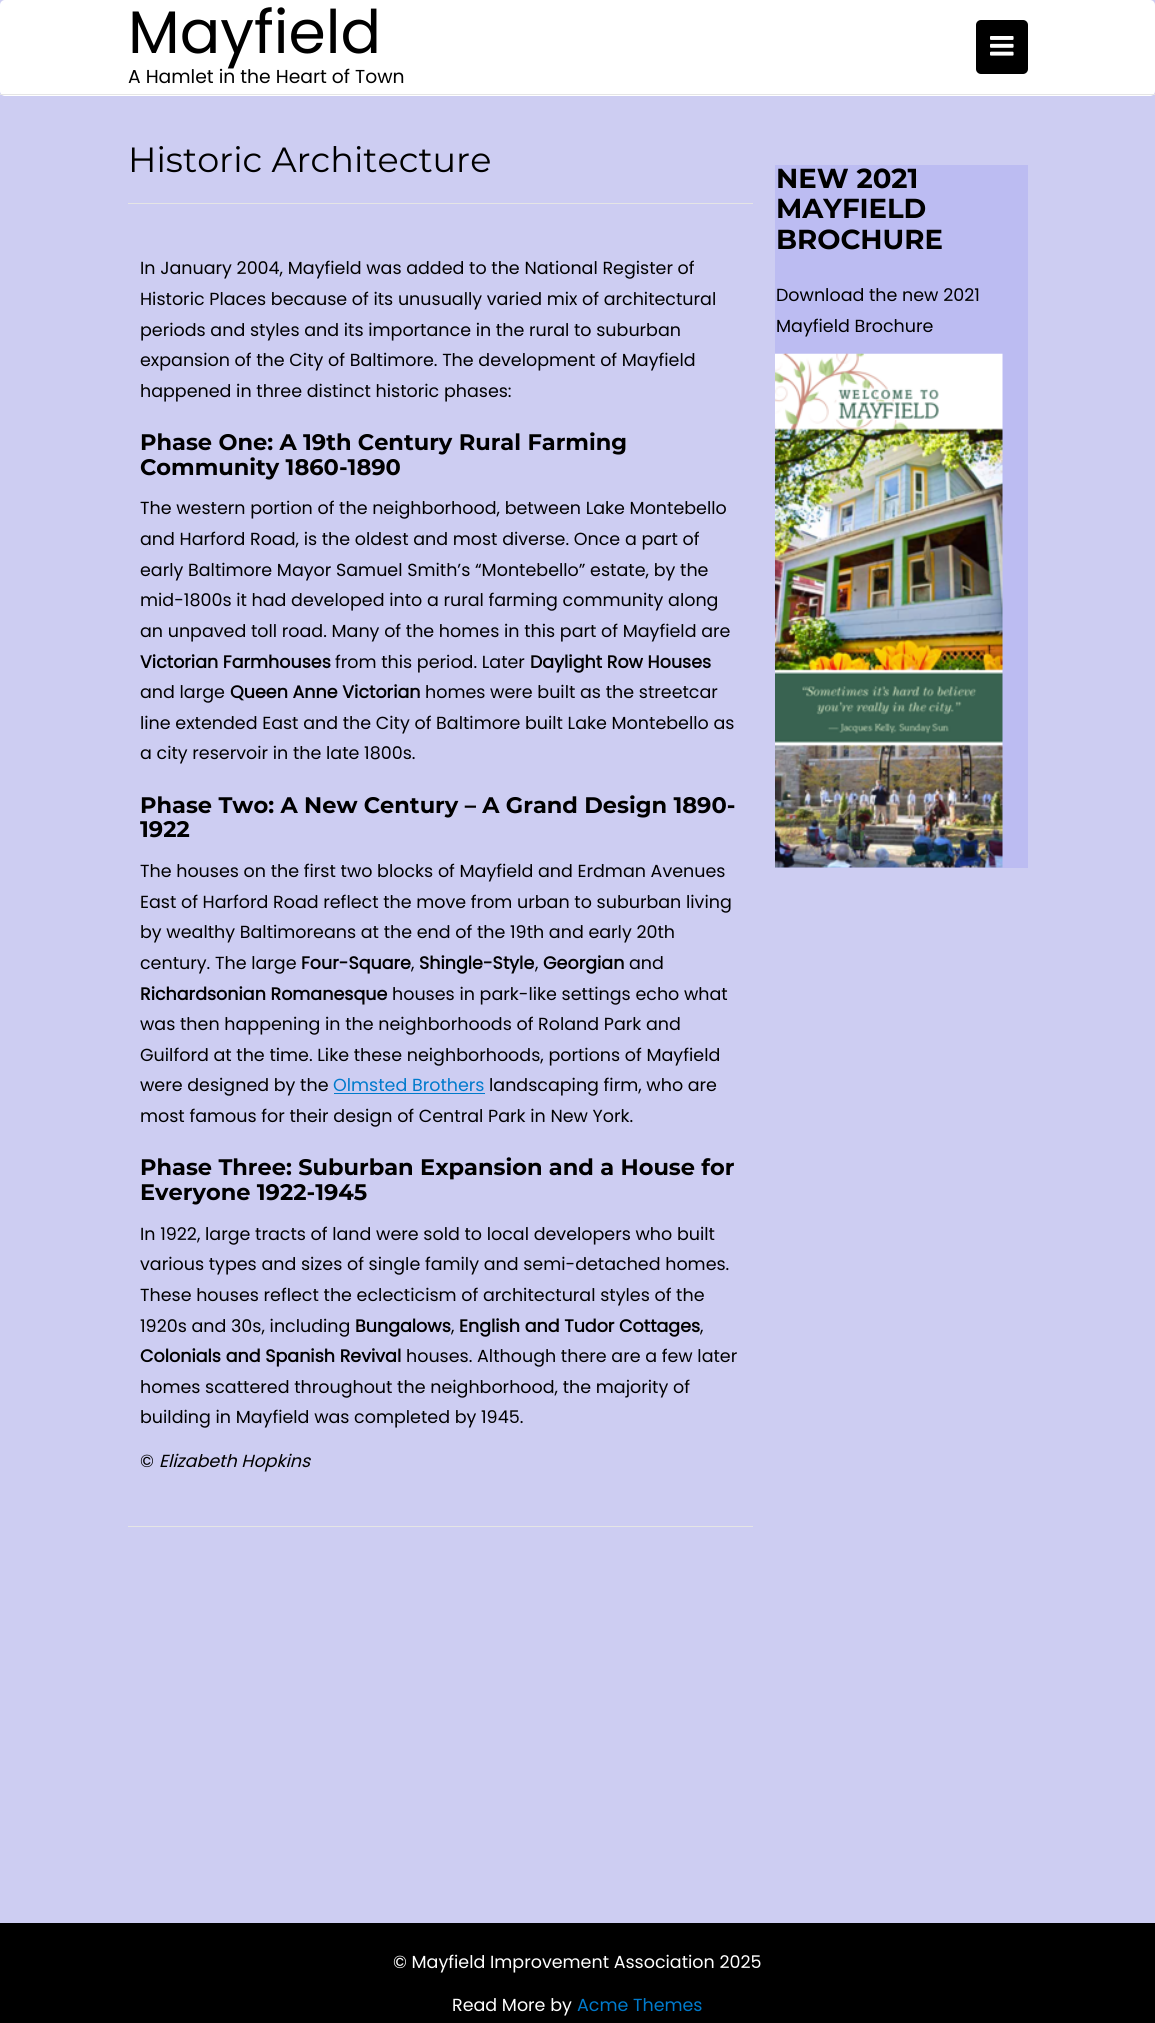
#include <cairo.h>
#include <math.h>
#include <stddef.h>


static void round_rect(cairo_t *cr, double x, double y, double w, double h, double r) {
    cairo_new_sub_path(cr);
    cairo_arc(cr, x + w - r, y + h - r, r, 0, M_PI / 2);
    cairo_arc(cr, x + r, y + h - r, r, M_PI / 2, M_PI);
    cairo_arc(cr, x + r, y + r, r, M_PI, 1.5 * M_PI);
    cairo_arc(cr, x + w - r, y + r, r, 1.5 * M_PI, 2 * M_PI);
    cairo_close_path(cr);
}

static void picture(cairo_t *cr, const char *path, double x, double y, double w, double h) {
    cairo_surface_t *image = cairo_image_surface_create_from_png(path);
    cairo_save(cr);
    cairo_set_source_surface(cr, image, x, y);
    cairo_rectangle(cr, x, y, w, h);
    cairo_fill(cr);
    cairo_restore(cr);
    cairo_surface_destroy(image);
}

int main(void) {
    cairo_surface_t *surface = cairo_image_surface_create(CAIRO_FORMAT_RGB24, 1155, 2023);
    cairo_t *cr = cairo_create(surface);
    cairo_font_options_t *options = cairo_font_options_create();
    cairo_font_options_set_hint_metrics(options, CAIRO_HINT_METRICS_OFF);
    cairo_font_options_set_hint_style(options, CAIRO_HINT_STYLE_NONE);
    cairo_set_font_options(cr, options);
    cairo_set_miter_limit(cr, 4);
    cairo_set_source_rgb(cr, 0.804, 0.804, 0.949);
    cairo_paint(cr);
    cairo_set_source_rgb(cr, 1, 1, 1);
    round_rect(cr, 0, 0, 1155, 96, 5);
    cairo_fill(cr);
    cairo_select_font_face(cr, "Poppins", CAIRO_FONT_SLANT_NORMAL, CAIRO_FONT_WEIGHT_NORMAL);
    cairo_set_font_size(cr, 60);
    cairo_set_source_rgb(cr, 0, 0, 0);
    cairo_move_to(cr, 128, 53);
    cairo_show_text(cr, "Mayfield");
    round_rect(cr, 976, 20, 52, 54, 5);
    cairo_fill(cr);
    picture(cr, "img1.png", 990, 36, 24, 20);
    cairo_set_font_size(cr, 18.75);
    cairo_move_to(cr, 128, 83);
    cairo_show_text(cr, "A Hamlet in the Heart of Town");
    cairo_set_source_rgb(cr, 0.898, 0.898, 0.898);
    cairo_rectangle(cr, 0, 94, 1155, 1);
    cairo_fill(cr);
    cairo_rectangle(cr, 128, 203, 625, 1);
    cairo_fill(cr);
    cairo_select_font_face(cr, "Montserrat", CAIRO_FONT_SLANT_NORMAL, CAIRO_FONT_WEIGHT_NORMAL);
    cairo_set_font_size(cr, 35);
    cairo_set_source_rgb(cr, 0, 0, 0);
    cairo_move_to(cr, 128, 172);
    cairo_show_text(cr, "Historic Architecture");
    cairo_set_source_rgb(cr, 0.898, 0.898, 0.898);
    cairo_rectangle(cr, 128, 1526, 625, 1);
    cairo_fill(cr);
    cairo_select_font_face(cr, "Poppins", CAIRO_FONT_SLANT_NORMAL, CAIRO_FONT_WEIGHT_NORMAL);
    cairo_set_font_size(cr, 17.5);
    cairo_set_source_rgb(cr, 0, 0, 0);
    cairo_move_to(cr, 140, 274);
    cairo_show_text(cr, "In January 2004, Mayfield was added to the National Register of");
    cairo_move_to(cr, 140, 305);
    cairo_show_text(cr, "Historic Places because of its unusually varied mix of architectural");
    cairo_move_to(cr, 140, 336);
    cairo_show_text(cr, "periods and styles and its importance in the rural to suburban");
    cairo_move_to(cr, 140, 366);
    cairo_show_text(cr, "expansion of the City of Baltimore. The development of Mayfield");
    cairo_move_to(cr, 140, 397);
    cairo_show_text(cr, "happened in three distinct historic phases:");
    cairo_select_font_face(cr, "Montserrat", CAIRO_FONT_SLANT_NORMAL, CAIRO_FONT_WEIGHT_BOLD);
    cairo_set_font_size(cr, 22.5);
    cairo_move_to(cr, 140, 450);
    cairo_show_text(cr, "Phase One: A 19th Century Rural Farming");
    cairo_move_to(cr, 140, 475);
    cairo_show_text(cr, "Community 1860-1890");
    cairo_select_font_face(cr, "Poppins", CAIRO_FONT_SLANT_NORMAL, CAIRO_FONT_WEIGHT_NORMAL);
    cairo_set_font_size(cr, 17.5);
    cairo_move_to(cr, 140, 514);
    cairo_show_text(cr, "The western portion of the neighborhood, between Lake Montebello");
    cairo_move_to(cr, 140, 545);
    cairo_show_text(cr, "and Harford Road, is the oldest and most diverse. Once a part of");
    cairo_move_to(cr, 140, 576);
    cairo_show_text(cr, "early Baltimore Mayor Samuel Smith’s “Montebello” estate, by the");
    cairo_move_to(cr, 140, 606);
    cairo_show_text(cr, "mid-1800s it had developed into a rural farming community along");
    cairo_move_to(cr, 140, 637);
    cairo_show_text(cr, "an unpaved toll road. Many of the homes in this part of Mayfield are");
    cairo_select_font_face(cr, "Poppins", CAIRO_FONT_SLANT_NORMAL, CAIRO_FONT_WEIGHT_BOLD);
    cairo_move_to(cr, 140, 668);
    cairo_show_text(cr, "Victorian Farmhouses");
    cairo_select_font_face(cr, "Poppins", CAIRO_FONT_SLANT_NORMAL, CAIRO_FONT_WEIGHT_NORMAL);
    cairo_move_to(cr, 335, 668);
    cairo_show_text(cr, "from this period. Later");
    cairo_select_font_face(cr, "Poppins", CAIRO_FONT_SLANT_NORMAL, CAIRO_FONT_WEIGHT_BOLD);
    cairo_move_to(cr, 530, 668);
    cairo_show_text(cr, "Daylight Row Houses");
    cairo_select_font_face(cr, "Poppins", CAIRO_FONT_SLANT_NORMAL, CAIRO_FONT_WEIGHT_NORMAL);
    cairo_move_to(cr, 140, 698);
    cairo_show_text(cr, "and large");
    cairo_select_font_face(cr, "Poppins", CAIRO_FONT_SLANT_NORMAL, CAIRO_FONT_WEIGHT_BOLD);
    cairo_move_to(cr, 230, 698);
    cairo_show_text(cr, "Queen Anne Victorian");
    cairo_select_font_face(cr, "Poppins", CAIRO_FONT_SLANT_NORMAL, CAIRO_FONT_WEIGHT_NORMAL);
    cairo_move_to(cr, 425, 698);
    cairo_show_text(cr, "homes were built as the streetcar");
    cairo_move_to(cr, 140, 729);
    cairo_show_text(cr, "line extended East and the City of Baltimore built Lake Montebello as");
    cairo_move_to(cr, 140, 759);
    cairo_show_text(cr, "a city reservoir in the late 1800s.");
    cairo_select_font_face(cr, "Montserrat", CAIRO_FONT_SLANT_NORMAL, CAIRO_FONT_WEIGHT_BOLD);
    cairo_set_font_size(cr, 22.5);
    cairo_move_to(cr, 140, 813);
    cairo_show_text(cr, "Phase Two: A New Century – A Grand Design 1890-");
    cairo_move_to(cr, 140, 837);
    cairo_show_text(cr, "1922");
    cairo_select_font_face(cr, "Poppins", CAIRO_FONT_SLANT_NORMAL, CAIRO_FONT_WEIGHT_NORMAL);
    cairo_set_font_size(cr, 17.5);
    cairo_move_to(cr, 140, 877);
    cairo_show_text(cr, "The houses on the first two blocks of Mayfield and Erdman Avenues");
    cairo_move_to(cr, 140, 908);
    cairo_show_text(cr, "East of Harford Road reflect the move from urban to suburban living");
    cairo_move_to(cr, 140, 938);
    cairo_show_text(cr, "by wealthy Baltimoreans at the end of the 19th and early 20th");
    cairo_move_to(cr, 140, 969);
    cairo_show_text(cr, "century. The large");
    cairo_select_font_face(cr, "Poppins", CAIRO_FONT_SLANT_NORMAL, CAIRO_FONT_WEIGHT_BOLD);
    cairo_move_to(cr, 301, 969);
    cairo_show_text(cr, "Four-Square");
    cairo_select_font_face(cr, "Poppins", CAIRO_FONT_SLANT_NORMAL, CAIRO_FONT_WEIGHT_NORMAL);
    cairo_move_to(cr, 411, 969);
    cairo_show_text(cr, ",");
    cairo_select_font_face(cr, "Poppins", CAIRO_FONT_SLANT_NORMAL, CAIRO_FONT_WEIGHT_BOLD);
    cairo_move_to(cr, 419, 969);
    cairo_show_text(cr, "Shingle-Style");
    cairo_select_font_face(cr, "Poppins", CAIRO_FONT_SLANT_NORMAL, CAIRO_FONT_WEIGHT_NORMAL);
    cairo_move_to(cr, 535, 969);
    cairo_show_text(cr, ",");
    cairo_select_font_face(cr, "Poppins", CAIRO_FONT_SLANT_NORMAL, CAIRO_FONT_WEIGHT_BOLD);
    cairo_move_to(cr, 543, 969);
    cairo_show_text(cr, "Georgian");
    cairo_select_font_face(cr, "Poppins", CAIRO_FONT_SLANT_NORMAL, CAIRO_FONT_WEIGHT_NORMAL);
    cairo_move_to(cr, 629, 969);
    cairo_show_text(cr, "and");
    cairo_select_font_face(cr, "Poppins", CAIRO_FONT_SLANT_NORMAL, CAIRO_FONT_WEIGHT_BOLD);
    cairo_move_to(cr, 140, 1000);
    cairo_show_text(cr, "Richardsonian Romanesque");
    cairo_select_font_face(cr, "Poppins", CAIRO_FONT_SLANT_NORMAL, CAIRO_FONT_WEIGHT_NORMAL);
    cairo_move_to(cr, 392, 1000);
    cairo_show_text(cr, "houses in park-like settings echo what");
    cairo_move_to(cr, 140, 1030);
    cairo_show_text(cr, "was then happening in the neighborhoods of Roland Park and");
    cairo_move_to(cr, 140, 1061);
    cairo_show_text(cr, "Guilford at the time. Like these neighborhoods, portions of Mayfield");
    cairo_move_to(cr, 140, 1091);
    cairo_show_text(cr, "were designed by the");
    cairo_set_source_rgb(cr, 0, 0.478, 0.8);
    cairo_move_to(cr, 333, 1091);
    cairo_show_text(cr, "Olmsted Brothers");
    cairo_rectangle(cr, 334, 1093, 151, 1);
    cairo_fill(cr);
    cairo_set_source_rgb(cr, 0, 0, 0);
    cairo_move_to(cr, 489, 1091);
    cairo_show_text(cr, "landscaping firm, who are");
    cairo_move_to(cr, 140, 1122);
    cairo_show_text(cr, "most famous for their design of Central Park in New York.");
    cairo_select_font_face(cr, "Montserrat", CAIRO_FONT_SLANT_NORMAL, CAIRO_FONT_WEIGHT_BOLD);
    cairo_set_font_size(cr, 22.5);
    cairo_move_to(cr, 140, 1175);
    cairo_show_text(cr, "Phase Three: Suburban Expansion and a House for");
    cairo_move_to(cr, 140, 1200);
    cairo_show_text(cr, "Everyone 1922-1945");
    cairo_select_font_face(cr, "Poppins", CAIRO_FONT_SLANT_NORMAL, CAIRO_FONT_WEIGHT_NORMAL);
    cairo_set_font_size(cr, 17.5);
    cairo_move_to(cr, 140, 1240);
    cairo_show_text(cr, "In 1922, large tracts of land were sold to local developers who built");
    cairo_move_to(cr, 140, 1270);
    cairo_show_text(cr, "various types and sizes of single family and semi-detached homes.");
    cairo_move_to(cr, 140, 1301);
    cairo_show_text(cr, "These houses reflect the eclecticism of architectural styles of the");
    cairo_move_to(cr, 140, 1332);
    cairo_show_text(cr, "1920s and 30s, including");
    cairo_select_font_face(cr, "Poppins", CAIRO_FONT_SLANT_NORMAL, CAIRO_FONT_WEIGHT_BOLD);
    cairo_move_to(cr, 355, 1332);
    cairo_show_text(cr, "Bungalows");
    cairo_select_font_face(cr, "Poppins", CAIRO_FONT_SLANT_NORMAL, CAIRO_FONT_WEIGHT_NORMAL);
    cairo_move_to(cr, 451, 1332);
    cairo_show_text(cr, ",");
    cairo_select_font_face(cr, "Poppins", CAIRO_FONT_SLANT_NORMAL, CAIRO_FONT_WEIGHT_BOLD);
    cairo_move_to(cr, 459, 1332);
    cairo_show_text(cr, "English and Tudor Cottages");
    cairo_select_font_face(cr, "Poppins", CAIRO_FONT_SLANT_NORMAL, CAIRO_FONT_WEIGHT_NORMAL);
    cairo_move_to(cr, 700, 1332);
    cairo_show_text(cr, ",");
    cairo_select_font_face(cr, "Poppins", CAIRO_FONT_SLANT_NORMAL, CAIRO_FONT_WEIGHT_BOLD);
    cairo_move_to(cr, 140, 1362);
    cairo_show_text(cr, "Colonials and Spanish Revival");
    cairo_select_font_face(cr, "Poppins", CAIRO_FONT_SLANT_NORMAL, CAIRO_FONT_WEIGHT_NORMAL);
    cairo_move_to(cr, 406, 1362);
    cairo_show_text(cr, "houses. Although there are a few later");
    cairo_move_to(cr, 140, 1393);
    cairo_show_text(cr, "homes scattered throughout the neighborhood, the majority of");
    cairo_move_to(cr, 140, 1423);
    cairo_show_text(cr, "building in Mayfield was completed by 1945.");
    cairo_move_to(cr, 140, 1467);
    cairo_show_text(cr, "©");
    cairo_select_font_face(cr, "Poppins", CAIRO_FONT_SLANT_ITALIC, CAIRO_FONT_WEIGHT_NORMAL);
    cairo_move_to(cr, 159, 1467);
    cairo_show_text(cr, "Elizabeth Hopkins");
    cairo_set_source_rgb(cr, 0.737, 0.737, 0.949);
    cairo_rectangle(cr, 775, 165, 253, 703);
    cairo_fill(cr);
    cairo_select_font_face(cr, "Montserrat", CAIRO_FONT_SLANT_NORMAL, CAIRO_FONT_WEIGHT_BOLD);
    cairo_set_font_size(cr, 27.5);
    cairo_set_source_rgb(cr, 0, 0, 0);
    cairo_move_to(cr, 776, 188);
    cairo_show_text(cr, "NEW 2021");
    cairo_move_to(cr, 776, 218);
    cairo_show_text(cr, "MAYFIELD");
    cairo_move_to(cr, 776, 249);
    cairo_show_text(cr, "BROCHURE");
    cairo_select_font_face(cr, "Poppins", CAIRO_FONT_SLANT_NORMAL, CAIRO_FONT_WEIGHT_NORMAL);
    cairo_set_font_size(cr, 17.5);
    cairo_move_to(cr, 776, 301);
    cairo_show_text(cr, "Download the new 2021");
    cairo_move_to(cr, 776, 332);
    cairo_show_text(cr, "Mayfield Brochure");
    picture(cr, "img2.png", 775, 353, 228, 515);
    cairo_rectangle(cr, 0, 1923, 1155, 100);
    cairo_fill(cr);
    cairo_set_source_rgb(cr, 1, 1, 1);
    cairo_move_to(cr, 393, 1968);
    cairo_show_text(cr, "© Mayfield Improvement Association 2025");
    cairo_move_to(cr, 452, 2011);
    cairo_show_text(cr, "Read More by");
    cairo_set_source_rgb(cr, 0, 0.478, 0.8);
    cairo_move_to(cr, 577, 2011);
    cairo_show_text(cr, "Acme Themes");
    cairo_surface_write_to_png(surface, "page.png");
    cairo_font_options_destroy(options);
    cairo_destroy(cr);
    cairo_surface_destroy(surface);
    return 0;
}
